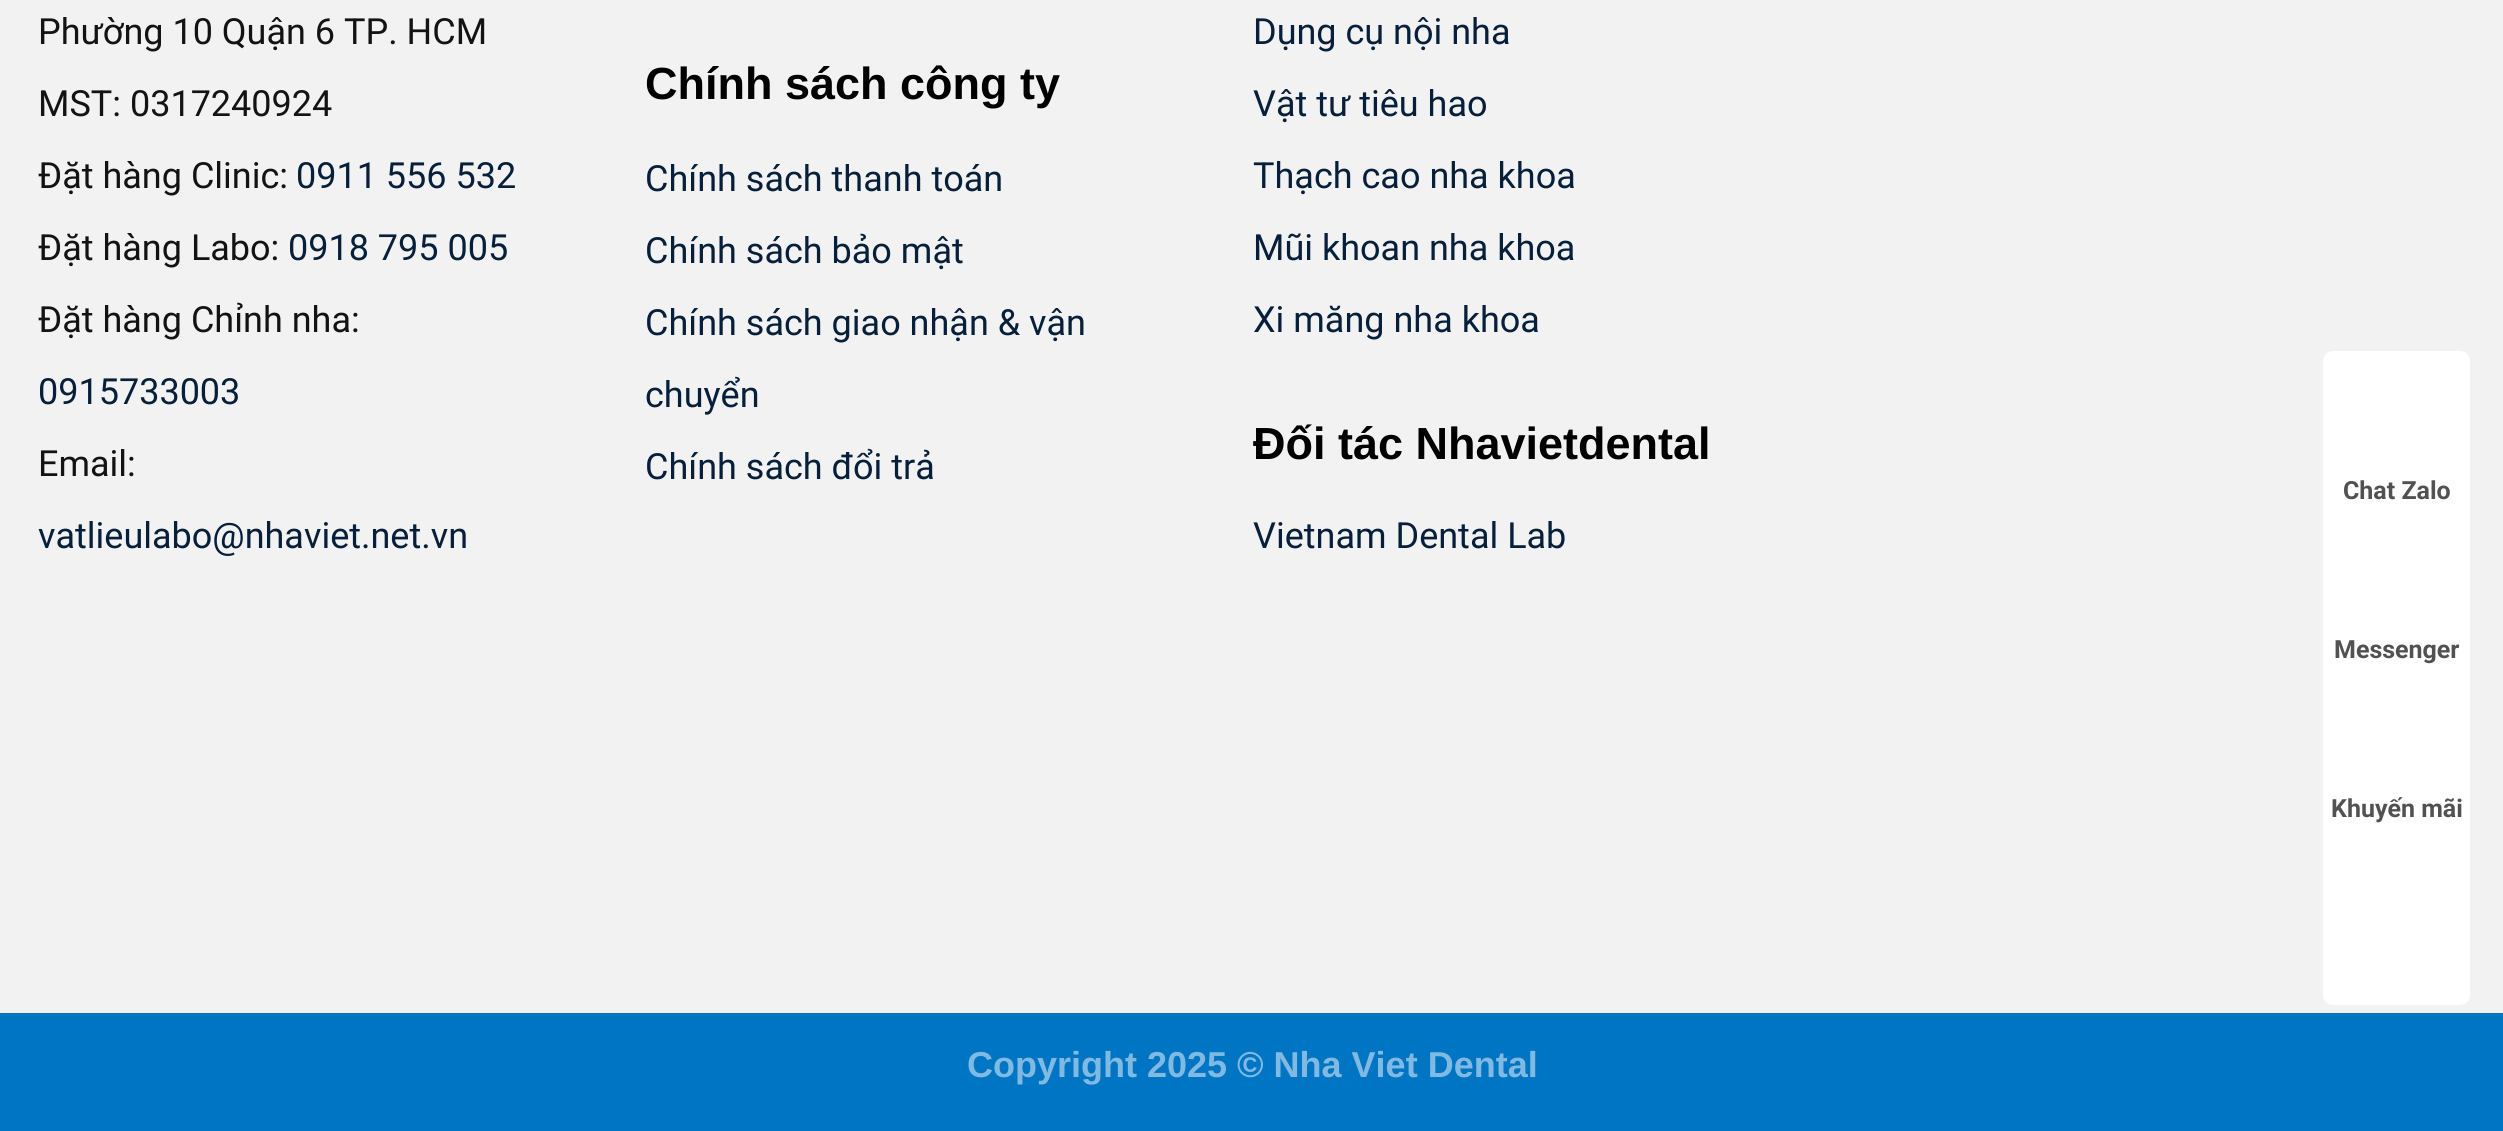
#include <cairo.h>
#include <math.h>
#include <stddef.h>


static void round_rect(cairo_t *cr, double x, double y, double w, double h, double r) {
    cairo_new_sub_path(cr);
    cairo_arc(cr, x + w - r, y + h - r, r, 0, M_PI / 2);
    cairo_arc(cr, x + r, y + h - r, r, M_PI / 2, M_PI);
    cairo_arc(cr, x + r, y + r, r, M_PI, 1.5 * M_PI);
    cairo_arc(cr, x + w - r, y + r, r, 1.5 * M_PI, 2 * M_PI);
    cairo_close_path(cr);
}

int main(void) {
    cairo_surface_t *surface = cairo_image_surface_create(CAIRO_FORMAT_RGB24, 2503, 1131);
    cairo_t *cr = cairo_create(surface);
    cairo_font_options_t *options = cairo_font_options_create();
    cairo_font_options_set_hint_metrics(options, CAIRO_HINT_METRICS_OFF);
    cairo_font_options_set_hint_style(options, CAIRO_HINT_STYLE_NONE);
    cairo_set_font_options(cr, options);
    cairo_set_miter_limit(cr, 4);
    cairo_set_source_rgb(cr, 0.949, 0.949, 0.949);
    cairo_paint(cr);
    cairo_select_font_face(cr, "Roboto", CAIRO_FONT_SLANT_NORMAL, CAIRO_FONT_WEIGHT_NORMAL);
    cairo_set_font_size(cr, 36);
    cairo_set_source_rgb(cr, 0.078, 0.078, 0.078);
    cairo_move_to(cr, 38, 44);
    cairo_show_text(cr, "Phường 10 Quận 6 TP. HCM");
    cairo_move_to(cr, 38, 116);
    cairo_show_text(cr, "MST: 0317240924");
    cairo_move_to(cr, 38, 188);
    cairo_show_text(cr, "Đặt hàng Clinic:");
    cairo_set_source_rgb(cr, 0.024, 0.122, 0.231);
    cairo_move_to(cr, 296, 188);
    cairo_show_text(cr, "0911 556 532");
    cairo_set_source_rgb(cr, 0.078, 0.078, 0.078);
    cairo_move_to(cr, 38, 260);
    cairo_show_text(cr, "Đặt hàng Labo:");
    cairo_set_source_rgb(cr, 0.024, 0.122, 0.231);
    cairo_move_to(cr, 288, 260);
    cairo_show_text(cr, "0918 795 005");
    cairo_set_source_rgb(cr, 0.078, 0.078, 0.078);
    cairo_move_to(cr, 38, 332);
    cairo_show_text(cr, "Đặt hàng Chỉnh nha:");
    cairo_set_source_rgb(cr, 0.024, 0.122, 0.231);
    cairo_move_to(cr, 38, 404);
    cairo_show_text(cr, "0915733003");
    cairo_set_source_rgb(cr, 0.078, 0.078, 0.078);
    cairo_move_to(cr, 38, 476);
    cairo_show_text(cr, "Email:");
    cairo_set_source_rgb(cr, 0.024, 0.122, 0.231);
    cairo_move_to(cr, 38, 548);
    cairo_show_text(cr, "vatlieulabo@nhaviet.net.vn");
    cairo_select_font_face(cr, "Liberation Sans", CAIRO_FONT_SLANT_NORMAL, CAIRO_FONT_WEIGHT_BOLD);
    cairo_set_font_size(cr, 45);
    cairo_set_source_rgb(cr, 0, 0, 0);
    cairo_move_to(cr, 645, 99);
    cairo_show_text(cr, "Chính sách công ty");
    cairo_select_font_face(cr, "Roboto", CAIRO_FONT_SLANT_NORMAL, CAIRO_FONT_WEIGHT_NORMAL);
    cairo_set_font_size(cr, 36);
    cairo_set_source_rgb(cr, 0.024, 0.122, 0.231);
    cairo_move_to(cr, 645, 191);
    cairo_show_text(cr, "Chính sách thanh toán");
    cairo_move_to(cr, 645, 263);
    cairo_show_text(cr, "Chính sách bảo mật");
    cairo_move_to(cr, 645, 335);
    cairo_show_text(cr, "Chính sách giao nhận & vận");
    cairo_move_to(cr, 645, 407);
    cairo_show_text(cr, "chuyển");
    cairo_move_to(cr, 645, 479);
    cairo_show_text(cr, "Chính sách đổi trả");
    cairo_move_to(cr, 1253, 44);
    cairo_show_text(cr, "Dụng cụ nội nha");
    cairo_move_to(cr, 1253, 116);
    cairo_show_text(cr, "Vật tư tiêu hao");
    cairo_move_to(cr, 1253, 188);
    cairo_show_text(cr, "Thạch cao nha khoa");
    cairo_move_to(cr, 1253, 260);
    cairo_show_text(cr, "Mũi khoan nha khoa");
    cairo_move_to(cr, 1253, 332);
    cairo_show_text(cr, "Xi măng nha khoa");
    cairo_select_font_face(cr, "Liberation Sans", CAIRO_FONT_SLANT_NORMAL, CAIRO_FONT_WEIGHT_BOLD);
    cairo_set_font_size(cr, 45);
    cairo_set_source_rgb(cr, 0, 0, 0);
    cairo_move_to(cr, 1253, 459);
    cairo_show_text(cr, "Đối tác Nhavietdental");
    cairo_select_font_face(cr, "Roboto", CAIRO_FONT_SLANT_NORMAL, CAIRO_FONT_WEIGHT_NORMAL);
    cairo_set_font_size(cr, 36);
    cairo_set_source_rgb(cr, 0.024, 0.122, 0.231);
    cairo_move_to(cr, 1253, 548);
    cairo_show_text(cr, "Vietnam Dental Lab");
    cairo_set_source_rgb(cr, 0, 0.459, 0.769);
    cairo_rectangle(cr, 0, 1013, 2503, 118);
    cairo_fill(cr);
    cairo_select_font_face(cr, "Liberation Sans", CAIRO_FONT_SLANT_NORMAL, CAIRO_FONT_WEIGHT_BOLD);
    cairo_set_source_rgb(cr, 0.502, 0.729, 0.886);
    cairo_move_to(cr, 967, 1077);
    cairo_show_text(cr, "Copyright 2025 © Nha Viet Dental");
    cairo_set_source_rgb(cr, 1, 1, 1);
    round_rect(cr, 2321.5, 349.5, 150, 657, 11.5);
    cairo_fill_preserve(cr);
    cairo_set_source_rgb(cr, 0.949, 0.949, 0.949);
    cairo_set_line_width(cr, 3);
    cairo_stroke(cr);
    cairo_select_font_face(cr, "Roboto", CAIRO_FONT_SLANT_NORMAL, CAIRO_FONT_WEIGHT_BOLD);
    cairo_set_font_size(cr, 25);
    cairo_set_source_rgb(cr, 0.318, 0.318, 0.318);
    cairo_move_to(cr, 2343, 499);
    cairo_show_text(cr, "Chat Zalo");
    cairo_move_to(cr, 2334, 658);
    cairo_show_text(cr, "Messenger");
    cairo_move_to(cr, 2331, 817);
    cairo_show_text(cr, "Khuyến mãi");
    cairo_surface_write_to_png(surface, "page.png");
    cairo_font_options_destroy(options);
    cairo_destroy(cr);
    cairo_surface_destroy(surface);
    return 0;
}
